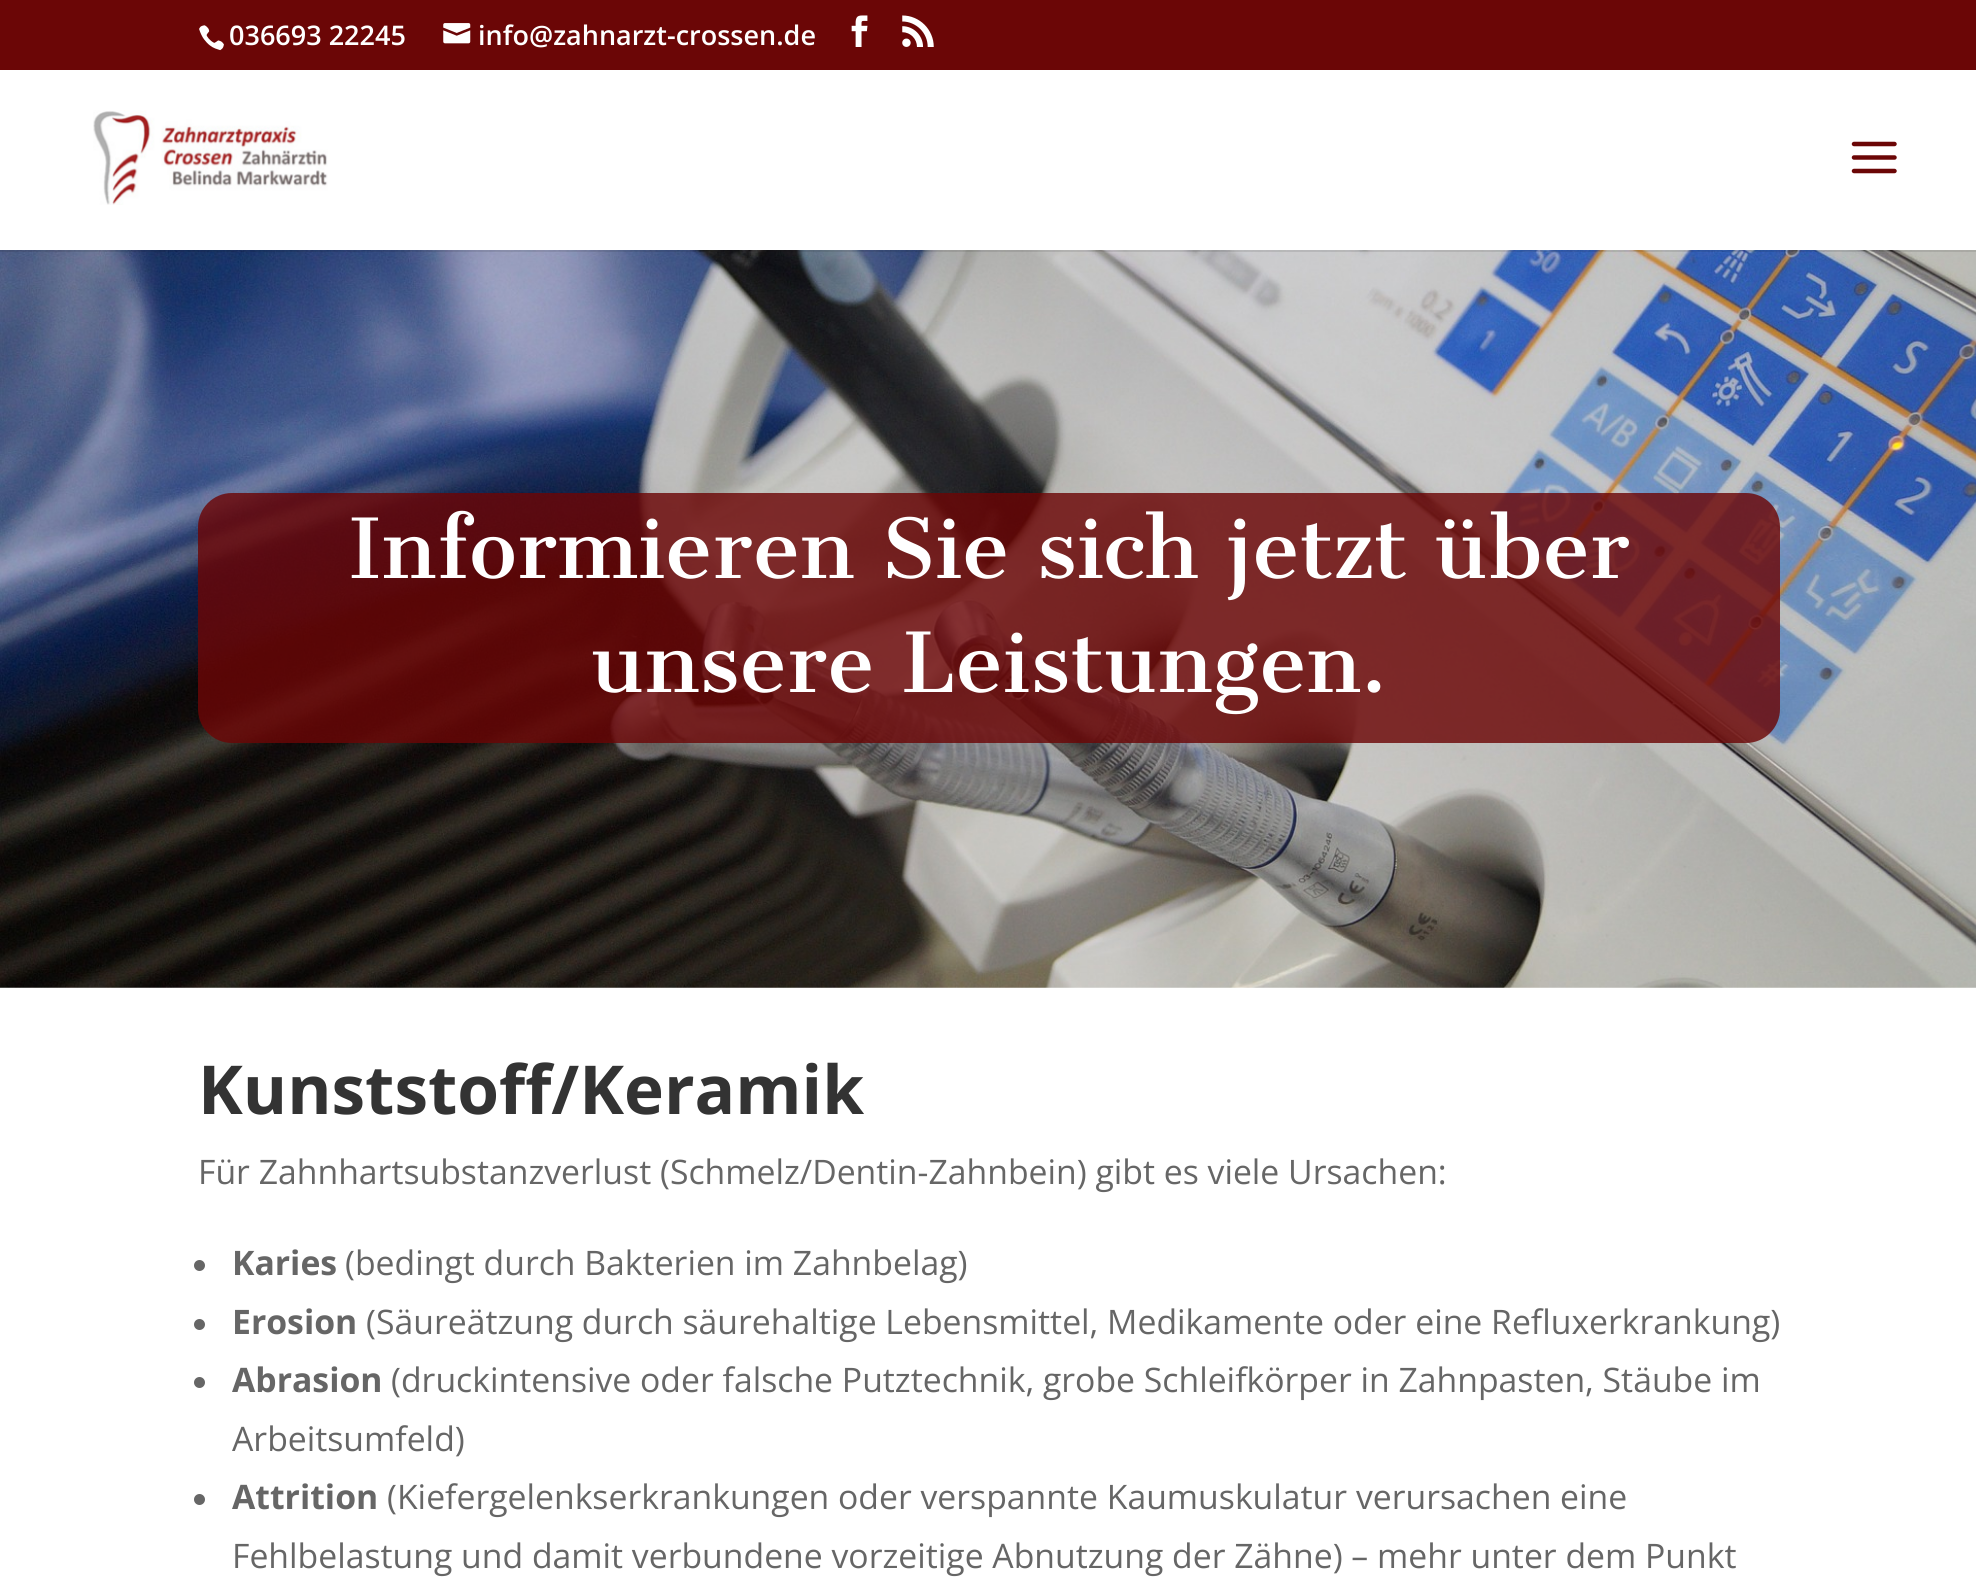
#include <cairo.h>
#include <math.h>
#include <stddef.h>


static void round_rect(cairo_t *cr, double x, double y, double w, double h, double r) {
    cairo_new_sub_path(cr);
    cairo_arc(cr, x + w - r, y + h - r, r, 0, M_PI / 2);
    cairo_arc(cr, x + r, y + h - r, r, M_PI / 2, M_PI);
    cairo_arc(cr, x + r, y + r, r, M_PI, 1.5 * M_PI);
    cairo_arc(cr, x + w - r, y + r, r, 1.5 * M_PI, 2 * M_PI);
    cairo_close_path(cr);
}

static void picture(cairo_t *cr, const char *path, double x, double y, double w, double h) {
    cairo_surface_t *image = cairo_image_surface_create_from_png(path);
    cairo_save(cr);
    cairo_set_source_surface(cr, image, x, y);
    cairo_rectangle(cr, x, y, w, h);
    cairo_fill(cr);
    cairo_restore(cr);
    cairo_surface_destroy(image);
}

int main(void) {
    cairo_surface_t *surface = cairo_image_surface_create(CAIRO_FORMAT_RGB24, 1976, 1588);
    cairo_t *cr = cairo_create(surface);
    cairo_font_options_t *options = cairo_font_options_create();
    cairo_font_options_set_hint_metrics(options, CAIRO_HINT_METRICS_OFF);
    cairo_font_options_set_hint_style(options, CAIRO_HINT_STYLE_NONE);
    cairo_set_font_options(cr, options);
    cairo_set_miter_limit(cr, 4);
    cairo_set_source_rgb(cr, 1, 1, 1);
    cairo_paint(cr);
    cairo_set_source_rgb(cr, 0.42, 0.024, 0.024);
    cairo_rectangle(cr, 0, 0, 1976, 70);
    cairo_fill(cr);
    picture(cr, "img1.png", 199, 25, 25, 26);
    cairo_select_font_face(cr, "Open Sans SemiBold", CAIRO_FONT_SLANT_NORMAL, CAIRO_FONT_WEIGHT_NORMAL);
    cairo_set_font_size(cr, 27);
    cairo_set_source_rgb(cr, 1, 1, 1);
    cairo_move_to(cr, 229, 45);
    cairo_show_text(cr, "036693 22245");
    picture(cr, "img2.png", 443, 23, 28, 21);
    cairo_move_to(cr, 478, 45);
    cairo_show_text(cr, "info@zahnarzt-crossen.de");
    picture(cr, "img3.png", 851, 15, 17, 32);
    picture(cr, "img4.png", 902, 15, 32, 32);
    picture(cr, "img7.png", 0, 250, 1976, 738);
    cairo_set_source_rgba(cr, 0, 0, 0, 0.1);
    cairo_new_path(cr);
    cairo_move_to(cr, 0, 250);
    cairo_line_to(cr, 0, 252);
    cairo_line_to(cr, 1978, 252);
    cairo_line_to(cr, 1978, 72);
    cairo_line_to(cr, 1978, 250);
    cairo_close_path(cr);
    cairo_fill(cr);
    picture(cr, "img5.png", 93, 110, 235, 95);
    picture(cr, "img6.png", 1851, 141, 46, 33);
    cairo_set_source_rgba(cr, 0.42, 0.024, 0.024, 0.81);
    round_rect(cr, 198, 493, 1582, 250, 34);
    cairo_fill(cr);
    cairo_select_font_face(cr, "Cantata One", CAIRO_FONT_SLANT_NORMAL, CAIRO_FONT_WEIGHT_NORMAL);
    cairo_set_font_size(cr, 81);
    cairo_set_source_rgb(cr, 1, 1, 1);
    cairo_move_to(cr, 348, 578);
    cairo_show_text(cr, "Informieren Sie sich jetzt über");
    cairo_move_to(cr, 591, 692);
    cairo_show_text(cr, "unsere Leistungen.");
    cairo_select_font_face(cr, "Open Sans", CAIRO_FONT_SLANT_NORMAL, CAIRO_FONT_WEIGHT_BOLD);
    cairo_set_font_size(cr, 67.5);
    cairo_set_source_rgb(cr, 0.2, 0.2, 0.2);
    cairo_move_to(cr, 198, 1114);
    cairo_show_text(cr, "Kunststoff/Keramik");
    cairo_select_font_face(cr, "Open Sans", CAIRO_FONT_SLANT_NORMAL, CAIRO_FONT_WEIGHT_NORMAL);
    cairo_set_font_size(cr, 33.75);
    cairo_set_source_rgb(cr, 0.4, 0.4, 0.4);
    cairo_move_to(cr, 198, 1184);
    cairo_show_text(cr, "Für Zahnhartsubstanzverlust (Schmelz/Dentin-Zahnbein) gibt es viele Ursachen:");
    cairo_new_path(cr);
    cairo_arc(cr, 199.5, 1265.5, 5.5, 0, 2 * M_PI);
    cairo_fill(cr);
    cairo_select_font_face(cr, "Open Sans", CAIRO_FONT_SLANT_NORMAL, CAIRO_FONT_WEIGHT_BOLD);
    cairo_move_to(cr, 232, 1275);
    cairo_show_text(cr, "Karies");
    cairo_select_font_face(cr, "Open Sans", CAIRO_FONT_SLANT_NORMAL, CAIRO_FONT_WEIGHT_NORMAL);
    cairo_move_to(cr, 345, 1275);
    cairo_show_text(cr, "(bedingt durch Bakterien im Zahnbelag)");
    cairo_new_path(cr);
    cairo_arc(cr, 199.5, 1324.5, 5.5, 0, 2 * M_PI);
    cairo_fill(cr);
    cairo_select_font_face(cr, "Open Sans", CAIRO_FONT_SLANT_NORMAL, CAIRO_FONT_WEIGHT_BOLD);
    cairo_move_to(cr, 232, 1334);
    cairo_show_text(cr, "Erosion");
    cairo_select_font_face(cr, "Open Sans", CAIRO_FONT_SLANT_NORMAL, CAIRO_FONT_WEIGHT_NORMAL);
    cairo_move_to(cr, 366, 1334);
    cairo_show_text(cr, "(Säureätzung durch säurehaltige Lebensmittel, Medikamente oder eine Refluxerkrankung)");
    cairo_new_path(cr);
    cairo_arc(cr, 199.5, 1382.5, 5.5, 0, 2 * M_PI);
    cairo_fill(cr);
    cairo_select_font_face(cr, "Open Sans", CAIRO_FONT_SLANT_NORMAL, CAIRO_FONT_WEIGHT_BOLD);
    cairo_move_to(cr, 232, 1392);
    cairo_show_text(cr, "Abrasion");
    cairo_select_font_face(cr, "Open Sans", CAIRO_FONT_SLANT_NORMAL, CAIRO_FONT_WEIGHT_NORMAL);
    cairo_move_to(cr, 391, 1392);
    cairo_show_text(cr, "(druckintensive oder falsche Putztechnik, grobe Schleifkörper in Zahnpasten, Stäube im");
    cairo_move_to(cr, 232, 1451);
    cairo_show_text(cr, "Arbeitsumfeld)");
    cairo_new_path(cr);
    cairo_arc(cr, 199.5, 1499.5, 5.5, 0, 2 * M_PI);
    cairo_fill(cr);
    cairo_select_font_face(cr, "Open Sans", CAIRO_FONT_SLANT_NORMAL, CAIRO_FONT_WEIGHT_BOLD);
    cairo_move_to(cr, 232, 1509);
    cairo_show_text(cr, "Attrition");
    cairo_select_font_face(cr, "Open Sans", CAIRO_FONT_SLANT_NORMAL, CAIRO_FONT_WEIGHT_NORMAL);
    cairo_move_to(cr, 387, 1509);
    cairo_show_text(cr, "(Kiefergelenkserkrankungen oder verspannte Kaumuskulatur verursachen eine");
    cairo_move_to(cr, 232, 1568);
    cairo_show_text(cr, "Fehlbelastung und damit verbundene vorzeitige Abnutzung der Zähne) – mehr unter dem Punkt");
    cairo_surface_write_to_png(surface, "page.png");
    cairo_font_options_destroy(options);
    cairo_destroy(cr);
    cairo_surface_destroy(surface);
    return 0;
}
